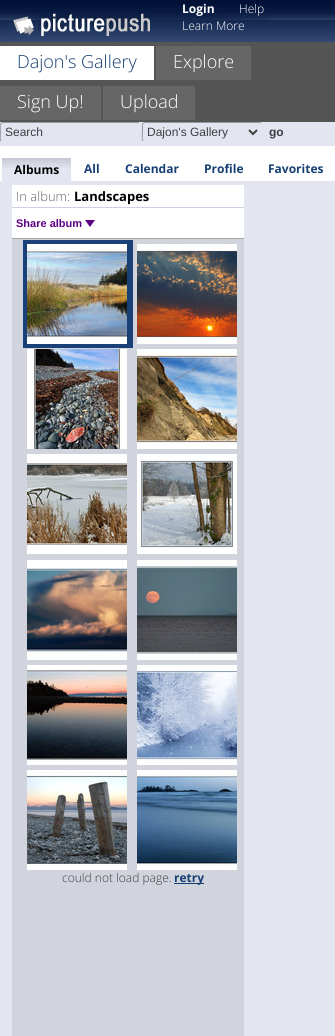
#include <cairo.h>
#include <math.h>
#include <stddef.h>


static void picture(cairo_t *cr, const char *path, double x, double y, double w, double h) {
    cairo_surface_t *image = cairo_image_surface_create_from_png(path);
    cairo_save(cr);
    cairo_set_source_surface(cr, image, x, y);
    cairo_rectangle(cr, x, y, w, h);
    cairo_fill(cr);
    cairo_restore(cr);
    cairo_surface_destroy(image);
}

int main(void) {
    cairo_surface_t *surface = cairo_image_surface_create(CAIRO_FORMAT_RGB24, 335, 1036);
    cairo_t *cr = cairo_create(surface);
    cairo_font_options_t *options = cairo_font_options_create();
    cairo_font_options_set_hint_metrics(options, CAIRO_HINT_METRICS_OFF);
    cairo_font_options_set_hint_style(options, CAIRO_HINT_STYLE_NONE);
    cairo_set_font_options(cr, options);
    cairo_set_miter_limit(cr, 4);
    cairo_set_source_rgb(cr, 0.89, 0.902, 0.945);
    cairo_paint(cr);
    picture(cr, "img1.png", 0, 0, 335, 42);
    picture(cr, "img2.png", 13, 8, 256, 34);
    cairo_select_font_face(cr, "Open Sans", CAIRO_FONT_SLANT_NORMAL, CAIRO_FONT_WEIGHT_BOLD);
    cairo_set_font_size(cr, 12);
    cairo_set_source_rgb(cr, 1, 1, 1);
    cairo_move_to(cr, 182, 13);
    cairo_show_text(cr, "Login");
    cairo_select_font_face(cr, "Open Sans Light", CAIRO_FONT_SLANT_NORMAL, CAIRO_FONT_WEIGHT_NORMAL);
    cairo_move_to(cr, 239, 13);
    cairo_show_text(cr, "Help");
    cairo_move_to(cr, 182, 30);
    cairo_show_text(cr, "Learn More");
    cairo_set_source_rgb(cr, 0.333, 0.333, 0.333);
    cairo_rectangle(cr, 0, 42, 335, 80);
    cairo_fill(cr);
    cairo_set_source_rgb(cr, 1, 1, 1);
    cairo_rectangle(cr, 0, 46, 154, 34);
    cairo_fill(cr);
    cairo_set_font_size(cr, 18);
    cairo_set_source_rgb(cr, 0.086, 0.247, 0.451);
    cairo_move_to(cr, 17, 68);
    cairo_show_text(cr, "Dajon's Gallery");
    cairo_set_source_rgb(cr, 0.4, 0.4, 0.4);
    cairo_rectangle(cr, 156, 46, 95, 34);
    cairo_fill(cr);
    cairo_set_source_rgb(cr, 1, 1, 1);
    cairo_move_to(cr, 173, 68);
    cairo_show_text(cr, "Explore");
    cairo_set_source_rgb(cr, 0.4, 0.4, 0.4);
    cairo_rectangle(cr, 0, 86, 101, 34);
    cairo_fill(cr);
    cairo_set_source_rgb(cr, 1, 1, 1);
    cairo_move_to(cr, 17, 108);
    cairo_show_text(cr, "Sign Up!");
    cairo_set_source_rgb(cr, 0.4, 0.4, 0.4);
    cairo_rectangle(cr, 103, 86, 92, 34);
    cairo_fill(cr);
    cairo_set_source_rgb(cr, 1, 1, 1);
    cairo_move_to(cr, 120, 108);
    cairo_show_text(cr, "Upload");
    cairo_new_path(cr);
    cairo_move_to(cr, 1, 141);
    cairo_curve_to(cr, -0.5, 139, 0.5, 134, 0.5, 132);
    cairo_curve_to(cr, 0.5, 130, -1, 123, 2.5, 122.5);
    cairo_line_to(cr, 137, 122.5);
    cairo_line_to(cr, 139, 123);
    cairo_set_source_rgb(cr, 0.592, 0.6, 0.631);
    cairo_set_line_width(cr, 1);
    cairo_stroke(cr);
    cairo_select_font_face(cr, "Liberation Sans", CAIRO_FONT_SLANT_NORMAL, CAIRO_FONT_WEIGHT_NORMAL);
    cairo_set_font_size(cr, 12);
    cairo_set_source_rgb(cr, 0.243, 0.243, 0.255);
    cairo_move_to(cr, 5, 136);
    cairo_show_text(cr, "Search");
    cairo_new_path(cr);
    cairo_move_to(cr, 143, 141);
    cairo_curve_to(cr, 141.5, 139, 142.5, 132, 142.5, 129.5);
    cairo_curve_to(cr, 142.5, 127.5, 141.5, 122.5, 145, 122.5);
    cairo_line_to(cr, 259, 122.5);
    cairo_line_to(cr, 261, 123);
    cairo_set_source_rgb(cr, 0.592, 0.6, 0.631);
    cairo_stroke(cr);
    cairo_new_path(cr);
    cairo_move_to(cr, 249, 130);
    cairo_line_to(cr, 253, 134);
    cairo_line_to(cr, 257, 130);
    cairo_set_source_rgb(cr, 0.243, 0.243, 0.243);
    cairo_set_line_width(cr, 2);
    cairo_stroke(cr);
    cairo_set_source_rgb(cr, 0.243, 0.243, 0.255);
    cairo_move_to(cr, 147, 136);
    cairo_show_text(cr, "Dajon's Gallery");
    cairo_select_font_face(cr, "Liberation Sans", CAIRO_FONT_SLANT_NORMAL, CAIRO_FONT_WEIGHT_BOLD);
    cairo_move_to(cr, 269, 136);
    cairo_show_text(cr, "go");
    cairo_set_source_rgb(cr, 1, 1, 1);
    cairo_rectangle(cr, 0, 146, 335, 35);
    cairo_fill(cr);
    cairo_set_source_rgb(cr, 0.89, 0.902, 0.945);
    cairo_rectangle(cr, 2, 158, 69, 23);
    cairo_fill(cr);
    picture(cr, "img3.png", 2, 158, 69, 10);
    cairo_select_font_face(cr, "Open Sans", CAIRO_FONT_SLANT_NORMAL, CAIRO_FONT_WEIGHT_BOLD);
    cairo_set_source_rgb(cr, 0, 0, 0);
    cairo_move_to(cr, 14, 174);
    cairo_show_text(cr, "Albums");
    cairo_set_source_rgb(cr, 0.086, 0.247, 0.451);
    cairo_move_to(cr, 84, 173);
    cairo_show_text(cr, "All");
    cairo_move_to(cr, 125, 173);
    cairo_show_text(cr, "Calendar");
    cairo_move_to(cr, 204, 173);
    cairo_show_text(cr, "Profile");
    cairo_move_to(cr, 268, 173);
    cairo_show_text(cr, "Favorites");
    cairo_set_source_rgb(cr, 1, 1, 1);
    cairo_rectangle(cr, 12, 185, 232, 53);
    cairo_fill(cr);
    cairo_set_source_rgb(cr, 0.643, 0.643, 0.643);
    cairo_rectangle(cr, 12, 238, 232, 1);
    cairo_fill(cr);
    cairo_select_font_face(cr, "Open Sans Light", CAIRO_FONT_SLANT_NORMAL, CAIRO_FONT_WEIGHT_NORMAL);
    cairo_set_font_size(cr, 13);
    cairo_set_source_rgb(cr, 0.4, 0.4, 0.4);
    cairo_move_to(cr, 16, 201);
    cairo_show_text(cr, "In album:");
    cairo_select_font_face(cr, "Open Sans", CAIRO_FONT_SLANT_NORMAL, CAIRO_FONT_WEIGHT_BOLD);
    cairo_set_source_rgb(cr, 0, 0, 0);
    cairo_move_to(cr, 74, 201);
    cairo_show_text(cr, "Landscapes");
    cairo_set_source_rgb(cr, 0.816, 0.816, 0.878);
    cairo_rectangle(cr, 12, 207, 232, 1);
    cairo_fill(cr);
    cairo_select_font_face(cr, "Liberation Sans", CAIRO_FONT_SLANT_NORMAL, CAIRO_FONT_WEIGHT_BOLD);
    cairo_set_font_size(cr, 11);
    cairo_set_source_rgb(cr, 0.369, 0, 0.522);
    cairo_move_to(cr, 16, 227);
    cairo_show_text(cr, "Share album");
    cairo_new_path(cr);
    cairo_move_to(cr, 85, 220);
    cairo_line_to(cr, 95, 220);
    cairo_line_to(cr, 90, 227);
    cairo_close_path(cr);
    cairo_fill(cr);
    cairo_set_source_rgb(cr, 0.82, 0.831, 0.867);
    cairo_rectangle(cr, 12, 239, 232, 797);
    cairo_fill(cr);
    cairo_set_source_rgb(cr, 0.098, 0.251, 0.467);
    cairo_rectangle(cr, 23, 240, 110, 108);
    cairo_fill(cr);
    picture(cr, "img4.png", 27, 244, 100, 100);
    picture(cr, "img5.png", 137, 244, 100, 100);
    picture(cr, "img6.png", 27, 349, 100, 100);
    picture(cr, "img7.png", 137, 349, 100, 100);
    picture(cr, "img8.png", 27, 454, 100, 100);
    picture(cr, "img9.png", 137, 454, 100, 100);
    picture(cr, "img10.png", 27, 560, 100, 100);
    picture(cr, "img11.png", 137, 560, 100, 100);
    picture(cr, "img12.png", 27, 665, 100, 100);
    picture(cr, "img13.png", 137, 665, 100, 100);
    picture(cr, "img14.png", 27, 770, 100, 100);
    picture(cr, "img15.png", 137, 770, 100, 100);
    cairo_select_font_face(cr, "Open Sans Light", CAIRO_FONT_SLANT_NORMAL, CAIRO_FONT_WEIGHT_NORMAL);
    cairo_set_font_size(cr, 12);
    cairo_set_source_rgb(cr, 0.243, 0.243, 0.255);
    cairo_move_to(cr, 62, 882);
    cairo_show_text(cr, "could not load page.");
    cairo_set_source_rgb(cr, 0.086, 0.247, 0.451);
    cairo_rectangle(cr, 174, 883, 30, 1);
    cairo_fill(cr);
    cairo_select_font_face(cr, "Open Sans", CAIRO_FONT_SLANT_NORMAL, CAIRO_FONT_WEIGHT_BOLD);
    cairo_move_to(cr, 174, 882);
    cairo_show_text(cr, "retry");
    cairo_surface_write_to_png(surface, "page.png");
    cairo_font_options_destroy(options);
    cairo_destroy(cr);
    cairo_surface_destroy(surface);
    return 0;
}
